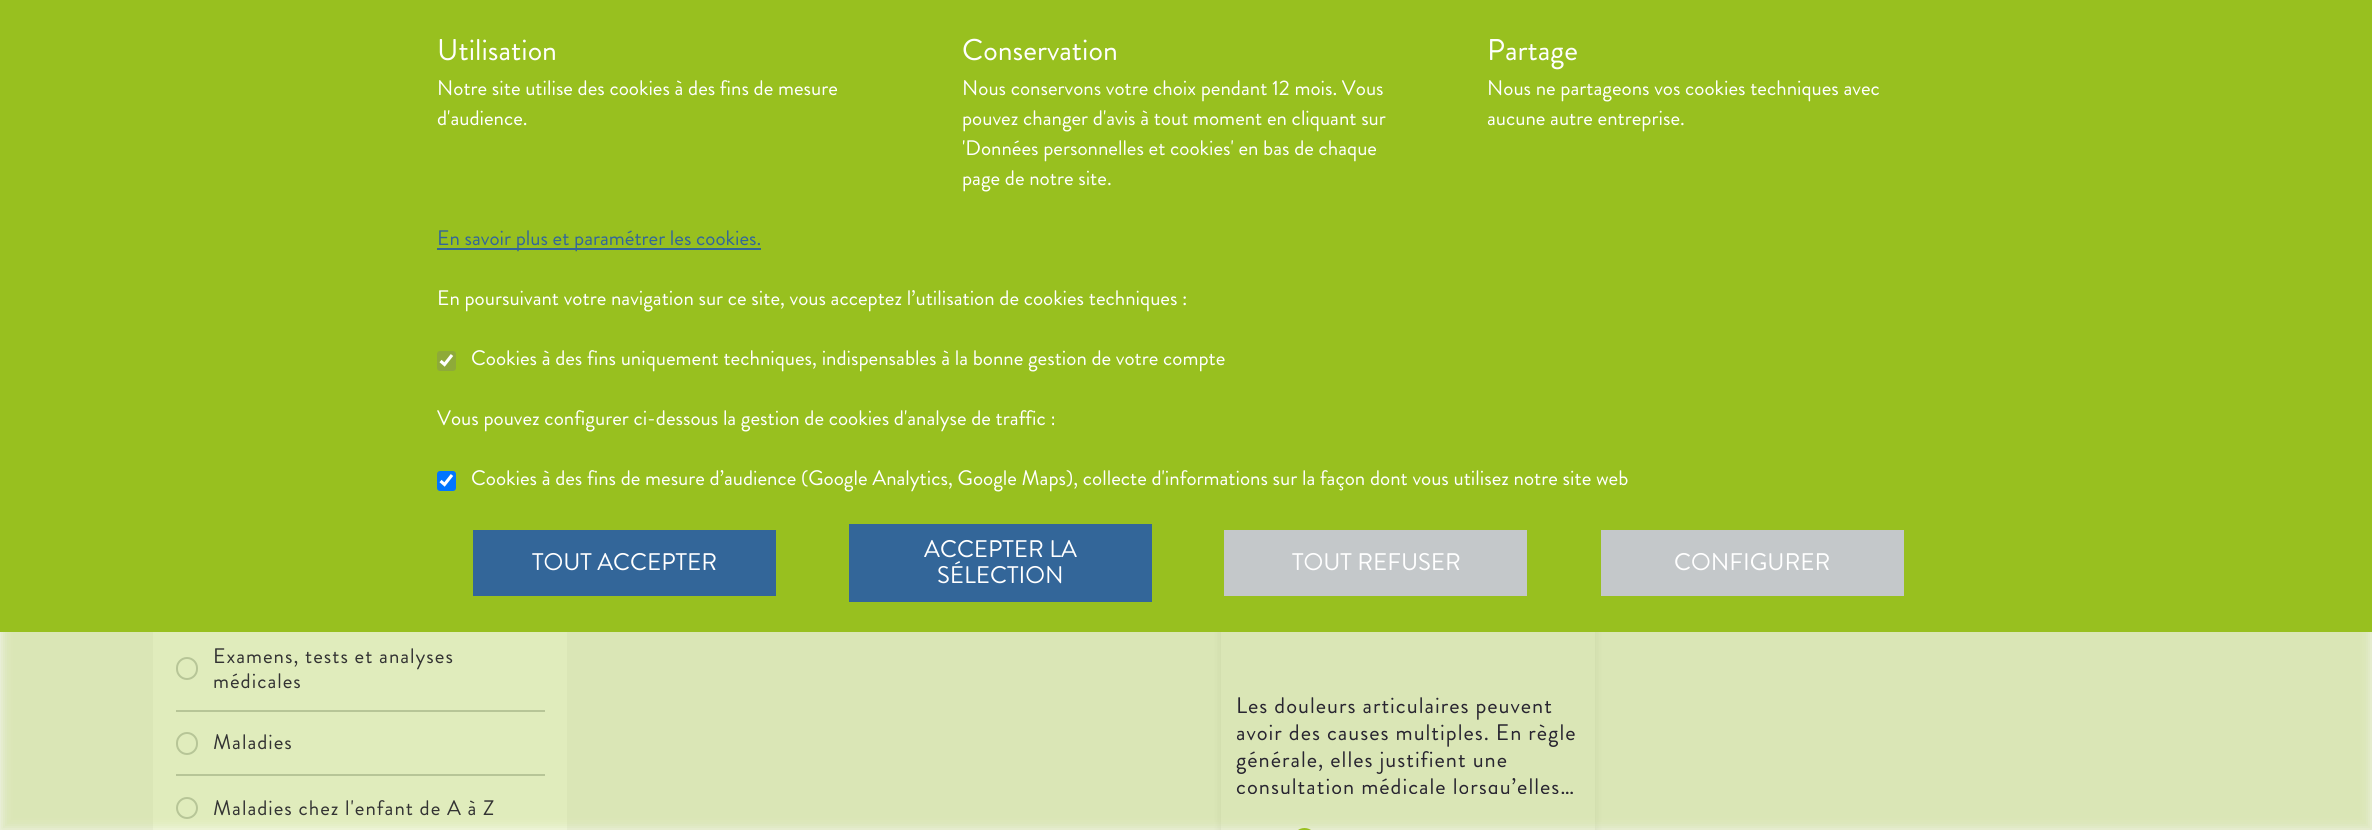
#include <cairo.h>
#include <math.h>
#include <stddef.h>


static void spaced_text(cairo_t *cr, double x, double y, const char *s, double letter, double word) {
    cairo_move_to(cr, x, y);
    while (*s) {
        char ch[5] = {0};
        int n = 0;
        do ch[n++] = *s++; while ((*s & 0xC0) == 0x80);
        cairo_show_text(cr, ch);
        cairo_rel_move_to(cr, letter + word * (*ch == ' '), 0);
    }
}

static void round_rect(cairo_t *cr, double x, double y, double w, double h, double r) {
    cairo_new_sub_path(cr);
    cairo_arc(cr, x + w - r, y + h - r, r, 0, M_PI / 2);
    cairo_arc(cr, x + r, y + h - r, r, M_PI / 2, M_PI);
    cairo_arc(cr, x + r, y + r, r, M_PI, 1.5 * M_PI);
    cairo_arc(cr, x + w - r, y + r, r, 1.5 * M_PI, 2 * M_PI);
    cairo_close_path(cr);
}

static void shadow(cairo_t *cr, double x, double y, double w, double h, double r, double blur, double alpha) {
    cairo_push_group_with_content(cr, CAIRO_CONTENT_ALPHA);
    cairo_set_operator(cr, CAIRO_OPERATOR_SOURCE);
    for (int i = 15; i >= -15 && fmin(w, h) + blur * i / 3 > 0; i -= 2) {
        double e = blur * i / 6;
        cairo_set_source_rgba(cr, 0, 0, 0, alpha * erfc((i - 1) / 8.5) / 2);
        round_rect(cr, x - e, y - e, w + 2 * e, h + 2 * e, fmax(0, fmin(r + e + blur * .6, fmin(w, h) / 2 + e)));
        cairo_fill(cr);
    }
    cairo_pattern_t *soft = cairo_pop_group(cr);
    cairo_mask(cr, soft);
    cairo_pattern_destroy(soft);
}

int main(void) {
    cairo_surface_t *surface = cairo_image_surface_create(CAIRO_FORMAT_RGB24, 2372, 830);
    cairo_t *cr = cairo_create(surface);
    cairo_font_options_t *options = cairo_font_options_create();
    cairo_font_options_set_hint_metrics(options, CAIRO_HINT_METRICS_OFF);
    cairo_font_options_set_hint_style(options, CAIRO_HINT_STYLE_NONE);
    cairo_set_font_options(cr, options);
    cairo_set_miter_limit(cr, 4);
    cairo_set_source_rgb(cr, 0.961, 0.961, 0.961);
    cairo_paint(cr);
    cairo_set_source_rgb(cr, 1, 1, 1);
    cairo_rectangle(cr, 153, 632, 414, 198);
    cairo_fill(cr);
    cairo_set_source_rgb(cr, 0.769, 0.784, 0.792);
    cairo_rectangle(cr, 176, 710, 369, 2);
    cairo_fill(cr);
    round_rect(cr, 177, 658, 20, 21, 10);
    cairo_stroke(cr);
    cairo_rectangle(cr, 176, 774, 369, 2);
    cairo_fill(cr);
    round_rect(cr, 177, 733, 20, 21, 10);
    cairo_stroke(cr);
    cairo_arc(cr, 187, 808, 10, 0, 2 * M_PI);
    cairo_stroke(cr);
    cairo_set_source_rgb(cr, 0, 0, 0);
    shadow(cr, 1221, 569, 374, 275, 0, 4.5, 0.08);
    cairo_set_source_rgb(cr, 0.961, 0.961, 0.961);
    cairo_rectangle(cr, 1221, 632, 374, 198);
    cairo_fill(cr);
    cairo_set_source_rgb(cr, 0.596, 0.753, 0.122);
    round_rect(cr, 1293, 828, 23, 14, 11.5);
    cairo_fill(cr);
    cairo_set_source_rgb(cr, 0.596, 0.753, 0.122);
    shadow(cr, 0, 0, 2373, 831, 0, 6, 0.3);
    cairo_set_source_rgb(cr, 0.596, 0.753, 0.122);
    cairo_rectangle(cr, 0, 0, 2372, 632);
    cairo_fill(cr);
    cairo_select_font_face(cr, "Brandon Grotesque", CAIRO_FONT_SLANT_NORMAL, CAIRO_FONT_WEIGHT_NORMAL);
    cairo_set_font_size(cr, 30);
    cairo_set_source_rgb(cr, 1, 1, 1);
    cairo_move_to(cr, 437, 60);
    cairo_show_text(cr, "Utilisation");
    cairo_set_font_size(cr, 21);
    cairo_move_to(cr, 437, 95);
    cairo_show_text(cr, "Notre site utilise des cookies à des fins de mesure");
    cairo_move_to(cr, 437, 125);
    cairo_show_text(cr, "d'audience.");
    cairo_set_font_size(cr, 30);
    cairo_move_to(cr, 962, 60);
    cairo_show_text(cr, "Conservation");
    cairo_set_font_size(cr, 21);
    cairo_move_to(cr, 962, 95);
    cairo_show_text(cr, "Nous conservons votre choix pendant 12 mois. Vous");
    cairo_move_to(cr, 962, 125);
    cairo_show_text(cr, "pouvez changer d'avis à tout moment en cliquant sur");
    cairo_move_to(cr, 962, 155);
    cairo_show_text(cr, "'Données personnelles et cookies' en bas de chaque");
    cairo_move_to(cr, 962, 185);
    cairo_show_text(cr, "page de notre site.");
    cairo_set_font_size(cr, 30);
    cairo_move_to(cr, 1487, 60);
    cairo_show_text(cr, "Partage");
    cairo_set_font_size(cr, 21);
    cairo_move_to(cr, 1487, 95);
    cairo_show_text(cr, "Nous ne partageons vos cookies techniques avec");
    cairo_move_to(cr, 1487, 125);
    cairo_show_text(cr, "aucune autre entreprise.");
    cairo_set_source_rgb(cr, 0.2, 0.4, 0.6);
    cairo_rectangle(cr, 437, 248, 324, 2);
    cairo_fill(cr);
    cairo_move_to(cr, 437, 245);
    cairo_show_text(cr, "En savoir plus et paramétrer les cookies.");
    cairo_set_source_rgb(cr, 1, 1, 1);
    cairo_move_to(cr, 437, 305);
    cairo_show_text(cr, "En poursuivant votre navigation sur ce site, vous acceptez l’utilisation de cookies techniques :");
    cairo_set_source_rgb(cr, 0.557, 0.667, 0.224);
    round_rect(cr, 437, 351, 19, 20, 3);
    cairo_fill(cr);
    cairo_new_path(cr);
    cairo_move_to(cr, 440.5, 361);
    cairo_line_to(cr, 444.5, 364.5);
    cairo_line_to(cr, 452, 355);
    cairo_set_source_rgb(cr, 1, 1, 1);
    cairo_set_line_width(cr, 3.1);
    cairo_stroke(cr);
    cairo_move_to(cr, 471, 365);
    cairo_show_text(cr, "Cookies à des fins uniquement techniques, indispensables à la bonne gestion de votre compte");
    cairo_move_to(cr, 437, 425);
    cairo_show_text(cr, "Vous pouvez configurer ci-dessous la gestion de cookies d'analyse de traffic :");
    cairo_set_source_rgb(cr, 0, 0.459, 1);
    round_rect(cr, 437, 471, 19, 20, 3);
    cairo_fill(cr);
    cairo_new_path(cr);
    cairo_move_to(cr, 440.5, 481);
    cairo_line_to(cr, 444.5, 484.5);
    cairo_line_to(cr, 452, 475);
    cairo_set_source_rgb(cr, 1, 1, 1);
    cairo_stroke(cr);
    cairo_move_to(cr, 471, 485);
    cairo_show_text(cr, "Cookies à des fins de mesure d’audience (Google Analytics, Google Maps), collecte d'informations sur la façon dont vous utilisez notre site web");
    cairo_set_source_rgb(cr, 0.2, 0.4, 0.6);
    cairo_rectangle(cr, 473, 530, 303, 66);
    cairo_fill(cr);
    cairo_set_font_size(cr, 24);
    cairo_set_source_rgb(cr, 1, 1, 1);
    cairo_move_to(cr, 532, 570);
    cairo_show_text(cr, "TOUT ACCEPTER");
    cairo_set_source_rgb(cr, 0.2, 0.4, 0.6);
    cairo_rectangle(cr, 849, 524, 303, 78);
    cairo_fill(cr);
    cairo_set_source_rgb(cr, 1, 1, 1);
    cairo_move_to(cr, 924, 557);
    cairo_show_text(cr, "ACCEPTER LA");
    cairo_move_to(cr, 937, 583);
    cairo_show_text(cr, "SÉLECTION");
    cairo_set_source_rgb(cr, 0.769, 0.784, 0.792);
    cairo_rectangle(cr, 1224, 530, 303, 66);
    cairo_fill(cr);
    cairo_set_source_rgb(cr, 1, 1, 1);
    cairo_move_to(cr, 1292, 570);
    cairo_show_text(cr, "TOUT REFUSER");
    cairo_set_source_rgb(cr, 0.769, 0.784, 0.792);
    cairo_rectangle(cr, 1601, 530, 303, 66);
    cairo_fill(cr);
    cairo_set_source_rgb(cr, 1, 1, 1);
    cairo_move_to(cr, 1674, 570);
    cairo_show_text(cr, "CONFIGURER");
    cairo_set_font_size(cr, 21);
    cairo_set_source_rgb(cr, 0.2, 0.2, 0.2);
    spaced_text(cr, 213, 663, "Examens, tests et analyses", 1, 0);
    spaced_text(cr, 213, 688, "médicales", 1, 0);
    spaced_text(cr, 213, 749, "Maladies", 1, 0);
    spaced_text(cr, 213, 815, "Maladies chez l'enfant de A à Z", 1, 0);
    cairo_set_font_size(cr, 22.5);
    cairo_set_source_rgb(cr, 0.157, 0.145, 0.188);
    spaced_text(cr, 1236, 713, "Les douleurs articulaires peuvent", 1, 0);
    spaced_text(cr, 1236, 740, "avoir des causes multiples. En règle", 1, 0);
    spaced_text(cr, 1236, 767, "générale, elles justifient une", 1, 0);
    cairo_save(cr);
    cairo_rectangle(cr, 1236, 692, 344, 102);
    cairo_clip(cr);
    spaced_text(cr, 1236, 794, "consultation médicale lorsqu’elles…", 1, 0);
    cairo_restore(cr);
    cairo_surface_write_to_png(surface, "page.png");
    cairo_font_options_destroy(options);
    cairo_destroy(cr);
    cairo_surface_destroy(surface);
    return 0;
}
